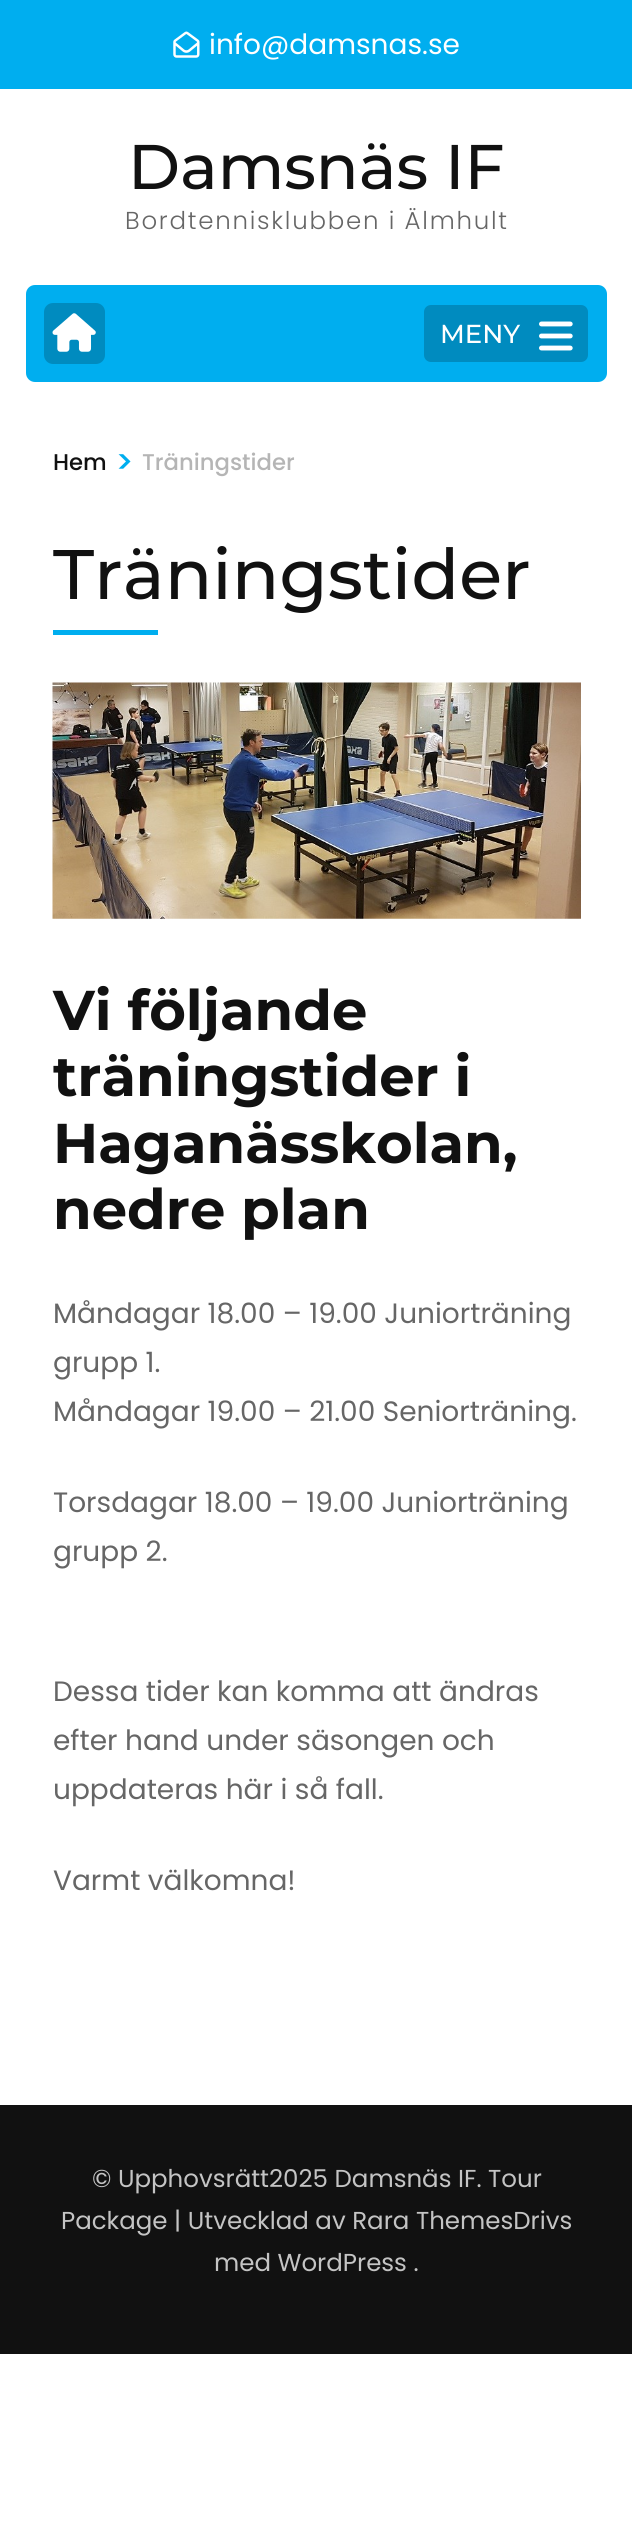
#include <cairo.h>
#include <math.h>
#include <stddef.h>


static void spaced_text(cairo_t *cr, double x, double y, const char *s, double letter, double word) {
    cairo_move_to(cr, x, y);
    while (*s) {
        char ch[5] = {0};
        int n = 0;
        do ch[n++] = *s++; while ((*s & 0xC0) == 0x80);
        cairo_show_text(cr, ch);
        cairo_rel_move_to(cr, letter + word * (*ch == ' '), 0);
    }
}

static void round_rect(cairo_t *cr, double x, double y, double w, double h, double r) {
    cairo_new_sub_path(cr);
    cairo_arc(cr, x + w - r, y + h - r, r, 0, M_PI / 2);
    cairo_arc(cr, x + r, y + h - r, r, M_PI / 2, M_PI);
    cairo_arc(cr, x + r, y + r, r, M_PI, 1.5 * M_PI);
    cairo_arc(cr, x + w - r, y + r, r, 1.5 * M_PI, 2 * M_PI);
    cairo_close_path(cr);
}

static void picture(cairo_t *cr, const char *path, double x, double y, double w, double h) {
    cairo_surface_t *image = cairo_image_surface_create_from_png(path);
    cairo_save(cr);
    cairo_set_source_surface(cr, image, x, y);
    cairo_rectangle(cr, x, y, w, h);
    cairo_fill(cr);
    cairo_restore(cr);
    cairo_surface_destroy(image);
}

int main(void) {
    cairo_surface_t *surface = cairo_image_surface_create(CAIRO_FORMAT_RGB24, 632, 2529);
    cairo_t *cr = cairo_create(surface);
    cairo_font_options_t *options = cairo_font_options_create();
    cairo_font_options_set_hint_metrics(options, CAIRO_HINT_METRICS_OFF);
    cairo_font_options_set_hint_style(options, CAIRO_HINT_STYLE_NONE);
    cairo_set_font_options(cr, options);
    cairo_set_miter_limit(cr, 4);
    cairo_set_source_rgb(cr, 1, 1, 1);
    cairo_paint(cr);
    cairo_set_source_rgb(cr, 0, 0.682, 0.937);
    cairo_rectangle(cr, 0, 0, 632, 89);
    cairo_fill(cr);
    picture(cr, "img1.png", 173, 31, 27, 27);
    cairo_select_font_face(cr, "Poppins", CAIRO_FONT_SLANT_NORMAL, CAIRO_FONT_WEIGHT_NORMAL);
    cairo_set_font_size(cr, 28);
    cairo_set_source_rgb(cr, 1, 1, 1);
    cairo_move_to(cr, 209, 54);
    cairo_show_text(cr, "info@damsnas.se");
    cairo_select_font_face(cr, "Montserrat Medium", CAIRO_FONT_SLANT_NORMAL, CAIRO_FONT_WEIGHT_NORMAL);
    cairo_set_font_size(cr, 63);
    cairo_set_source_rgb(cr, 0.067, 0.067, 0.067);
    cairo_move_to(cr, 128, 189);
    cairo_show_text(cr, "Damsnäs IF");
    cairo_select_font_face(cr, "Poppins Light", CAIRO_FONT_SLANT_NORMAL, CAIRO_FONT_WEIGHT_NORMAL);
    cairo_set_font_size(cr, 24.5);
    cairo_set_source_rgb(cr, 0.4, 0.4, 0.4);
    spaced_text(cr, 125, 229, "Bordtennisklubben i Älmhult", 1.75, 0);
    cairo_set_source_rgb(cr, 0, 0.682, 0.937);
    round_rect(cr, 26, 285, 581, 97, 9);
    cairo_fill(cr);
    cairo_set_source_rgb(cr, 0, 0.545, 0.749);
    round_rect(cr, 44, 303, 61, 61, 9);
    cairo_fill(cr);
    picture(cr, "img2.png", 52, 313, 44, 39);
    round_rect(cr, 423, 304, 166, 59, 8);
    cairo_fill_preserve(cr);
    cairo_set_source_rgb(cr, 0, 0.682, 0.937);
    cairo_stroke(cr);
    cairo_select_font_face(cr, "Montserrat Medium", CAIRO_FONT_SLANT_NORMAL, CAIRO_FONT_WEIGHT_NORMAL);
    cairo_set_font_size(cr, 26);
    cairo_set_source_rgb(cr, 1, 1, 1);
    cairo_move_to(cr, 440, 343);
    cairo_show_text(cr, "MENY");
    picture(cr, "img3.png", 539, 321, 34, 30);
    cairo_select_font_face(cr, "Poppins Medium", CAIRO_FONT_SLANT_NORMAL, CAIRO_FONT_WEIGHT_NORMAL);
    cairo_set_font_size(cr, 22.75);
    cairo_set_source_rgb(cr, 0.067, 0.067, 0.067);
    cairo_move_to(cr, 53, 470);
    cairo_show_text(cr, "Hem");
    cairo_set_font_size(cr, 32);
    cairo_set_source_rgb(cr, 0, 0.682, 0.937);
    cairo_move_to(cr, 115, 473);
    cairo_show_text(cr, ">");
    cairo_set_font_size(cr, 22.75);
    cairo_set_source_rgb(cr, 0.71, 0.71, 0.71);
    cairo_move_to(cr, 142, 470);
    cairo_show_text(cr, "Träningstider");
    cairo_select_font_face(cr, "Montserrat Medium", CAIRO_FONT_SLANT_NORMAL, CAIRO_FONT_WEIGHT_NORMAL);
    cairo_set_font_size(cr, 70);
    cairo_set_source_rgb(cr, 0.067, 0.067, 0.067);
    cairo_move_to(cr, 53, 599);
    cairo_show_text(cr, "Träningstider");
    cairo_set_source_rgb(cr, 0, 0.682, 0.937);
    cairo_rectangle(cr, 53, 630, 105, 5);
    cairo_fill(cr);
    picture(cr, "img4.png", 52, 682, 529, 237);
    cairo_select_font_face(cr, "Montserrat", CAIRO_FONT_SLANT_NORMAL, CAIRO_FONT_WEIGHT_BOLD);
    cairo_set_font_size(cr, 56);
    cairo_set_source_rgb(cr, 0.067, 0.067, 0.067);
    cairo_move_to(cr, 53, 1030);
    cairo_show_text(cr, "Vi följande");
    cairo_move_to(cr, 53, 1096);
    cairo_show_text(cr, "träningstider i");
    cairo_move_to(cr, 53, 1163);
    cairo_show_text(cr, "Haganässkolan,");
    cairo_move_to(cr, 53, 1229);
    cairo_show_text(cr, "nedre plan");
    cairo_select_font_face(cr, "Poppins", CAIRO_FONT_SLANT_NORMAL, CAIRO_FONT_WEIGHT_NORMAL);
    cairo_set_font_size(cr, 28);
    cairo_set_source_rgb(cr, 0.4, 0.4, 0.4);
    cairo_move_to(cr, 53, 1323);
    cairo_show_text(cr, "Måndagar 18.00 – 19.00 Juniorträning");
    cairo_move_to(cr, 53, 1372);
    cairo_show_text(cr, "grupp 1.");
    cairo_move_to(cr, 53, 1421);
    cairo_show_text(cr, "Måndagar 19.00 – 21.00 Seniorträning.");
    cairo_move_to(cr, 53, 1512);
    cairo_show_text(cr, "Torsdagar 18.00 – 19.00 Juniorträning");
    cairo_move_to(cr, 53, 1561);
    cairo_show_text(cr, "grupp 2.");
    cairo_move_to(cr, 53, 1701);
    cairo_show_text(cr, "Dessa tider kan komma att ändras");
    cairo_move_to(cr, 53, 1750);
    cairo_show_text(cr, "efter hand under säsongen och");
    cairo_move_to(cr, 53, 1799);
    cairo_show_text(cr, "uppdateras här i så fall.");
    cairo_move_to(cr, 53, 1890);
    cairo_show_text(cr, "Varmt välkomna!");
    cairo_set_source_rgb(cr, 0.067, 0.067, 0.067);
    cairo_rectangle(cr, 0, 2105, 632, 249);
    cairo_fill(cr);
    cairo_set_font_size(cr, 24.5);
    cairo_set_source_rgb(cr, 0.769, 0.769, 0.769);
    cairo_move_to(cr, 92, 2187);
    cairo_show_text(cr, "© Upphovsrätt2025 Damsnäs IF. Tour");
    cairo_move_to(cr, 61, 2229);
    cairo_show_text(cr, "Package | Utvecklad av Rara ThemesDrivs");
    cairo_move_to(cr, 214, 2271);
    cairo_show_text(cr, "med WordPress .");
    cairo_surface_write_to_png(surface, "page.png");
    cairo_font_options_destroy(options);
    cairo_destroy(cr);
    cairo_surface_destroy(surface);
    return 0;
}
